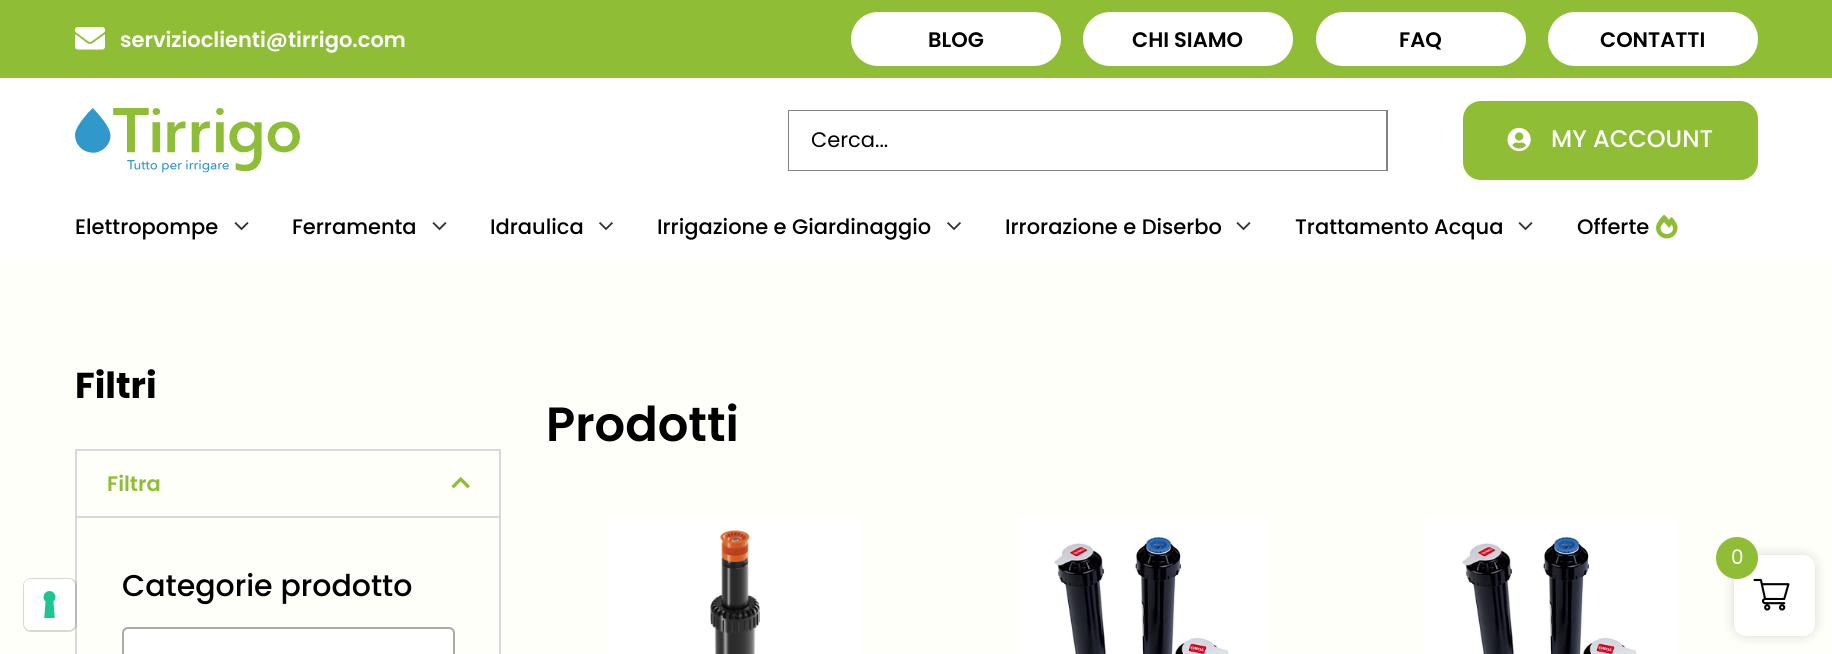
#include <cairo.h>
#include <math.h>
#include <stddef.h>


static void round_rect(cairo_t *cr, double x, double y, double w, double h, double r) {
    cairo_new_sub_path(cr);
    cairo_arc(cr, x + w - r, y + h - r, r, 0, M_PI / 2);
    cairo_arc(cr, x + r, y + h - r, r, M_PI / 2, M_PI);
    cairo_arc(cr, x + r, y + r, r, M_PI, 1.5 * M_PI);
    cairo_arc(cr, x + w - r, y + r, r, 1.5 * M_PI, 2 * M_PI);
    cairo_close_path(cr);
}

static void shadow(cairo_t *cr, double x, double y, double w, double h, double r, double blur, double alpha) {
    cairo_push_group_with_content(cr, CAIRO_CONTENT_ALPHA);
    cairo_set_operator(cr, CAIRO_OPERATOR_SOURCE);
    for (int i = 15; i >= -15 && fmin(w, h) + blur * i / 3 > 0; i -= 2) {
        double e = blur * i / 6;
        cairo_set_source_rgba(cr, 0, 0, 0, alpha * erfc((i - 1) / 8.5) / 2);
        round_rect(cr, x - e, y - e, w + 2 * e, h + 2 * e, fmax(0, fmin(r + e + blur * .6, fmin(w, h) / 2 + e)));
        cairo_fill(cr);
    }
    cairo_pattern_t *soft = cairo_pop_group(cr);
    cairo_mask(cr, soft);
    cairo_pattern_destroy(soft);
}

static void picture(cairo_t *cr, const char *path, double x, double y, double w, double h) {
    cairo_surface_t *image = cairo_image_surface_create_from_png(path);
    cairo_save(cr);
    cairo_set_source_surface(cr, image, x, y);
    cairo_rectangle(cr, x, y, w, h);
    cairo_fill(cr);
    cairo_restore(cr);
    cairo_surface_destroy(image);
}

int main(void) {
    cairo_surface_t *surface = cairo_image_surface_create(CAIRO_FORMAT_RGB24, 1832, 654);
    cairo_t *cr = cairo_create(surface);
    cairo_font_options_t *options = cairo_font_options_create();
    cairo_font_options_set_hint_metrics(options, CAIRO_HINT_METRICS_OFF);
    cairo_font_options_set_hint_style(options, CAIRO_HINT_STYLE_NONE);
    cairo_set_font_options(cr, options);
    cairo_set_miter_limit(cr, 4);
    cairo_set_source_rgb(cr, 1, 1, 0.973);
    cairo_paint(cr);
    cairo_set_source_rgb(cr, 0.561, 0.741, 0.208);
    cairo_rectangle(cr, 0, 0, 1832, 78);
    cairo_fill(cr);
    picture(cr, "img1.png", 75, 27, 30, 23);
    cairo_select_font_face(cr, "Poppins SemiBold", CAIRO_FONT_SLANT_NORMAL, CAIRO_FONT_WEIGHT_NORMAL);
    cairo_set_font_size(cr, 21);
    cairo_set_source_rgb(cr, 1, 1, 1);
    cairo_move_to(cr, 120, 47);
    cairo_show_text(cr, "servizioclienti@tirrigo.com");
    round_rect(cr, 851, 12, 210, 54, 27);
    cairo_fill(cr);
    cairo_set_source_rgb(cr, 0, 0, 0);
    cairo_move_to(cr, 928, 47);
    cairo_show_text(cr, "BLOG");
    cairo_set_source_rgb(cr, 1, 1, 1);
    round_rect(cr, 1083, 12, 210, 54, 27);
    cairo_fill(cr);
    cairo_set_source_rgb(cr, 0, 0, 0);
    cairo_move_to(cr, 1132, 47);
    cairo_show_text(cr, "CHI SIAMO");
    cairo_set_source_rgb(cr, 1, 1, 1);
    round_rect(cr, 1316, 12, 210, 54, 27);
    cairo_fill(cr);
    cairo_set_source_rgb(cr, 0, 0, 0);
    cairo_move_to(cr, 1399, 47);
    cairo_show_text(cr, "FAQ");
    cairo_set_source_rgb(cr, 1, 1, 1);
    round_rect(cr, 1548, 12, 210, 54, 27);
    cairo_fill(cr);
    cairo_set_source_rgb(cr, 0, 0, 0);
    cairo_move_to(cr, 1600, 47);
    cairo_show_text(cr, "CONTATTI");
    cairo_set_source_rgb(cr, 1, 1, 1);
    cairo_rectangle(cr, 0, 78, 1832, 185);
    cairo_fill(cr);
    picture(cr, "img2.png", 75, 108, 225, 65);
    cairo_rectangle(cr, 789, 111, 598, 59);
    cairo_set_source_rgb(cr, 0.518, 0.51, 0.51);
    cairo_stroke(cr);
    cairo_set_source_rgb(cr, 1, 1, 1);
    cairo_rectangle(cr, 789, 111, 597, 59);
    cairo_fill(cr);
    cairo_select_font_face(cr, "Poppins", CAIRO_FONT_SLANT_NORMAL, CAIRO_FONT_WEIGHT_NORMAL);
    cairo_set_source_rgb(cr, 0, 0, 0);
    cairo_move_to(cr, 811, 147);
    cairo_show_text(cr, "Cerca...");
    cairo_set_source_rgb(cr, 0.561, 0.741, 0.208);
    round_rect(cr, 1463, 101, 295, 79, 18);
    cairo_fill(cr);
    picture(cr, "img3.png", 1507, 127, 24, 25);
    cairo_select_font_face(cr, "Poppins Medium", CAIRO_FONT_SLANT_NORMAL, CAIRO_FONT_WEIGHT_NORMAL);
    cairo_set_font_size(cr, 24);
    cairo_set_source_rgb(cr, 1, 1, 1);
    cairo_move_to(cr, 1551, 147);
    cairo_show_text(cr, "MY ACCOUNT");
    cairo_set_font_size(cr, 21);
    cairo_set_source_rgb(cr, 0, 0, 0);
    cairo_move_to(cr, 75, 234);
    cairo_show_text(cr, "Elettropompe");
    picture(cr, "img4.png", 234, 222, 15, 9);
    cairo_move_to(cr, 292, 234);
    cairo_show_text(cr, "Ferramenta");
    picture(cr, "img4.png", 432, 222, 15, 9);
    cairo_move_to(cr, 490, 234);
    cairo_show_text(cr, "Idraulica");
    picture(cr, "img5.png", 599, 222, 14, 9);
    cairo_move_to(cr, 657, 234);
    cairo_show_text(cr, "Irrigazione e Giardinaggio");
    picture(cr, "img5.png", 947, 222, 14, 9);
    cairo_move_to(cr, 1005, 234);
    cairo_show_text(cr, "Irrorazione e Diserbo");
    picture(cr, "img4.png", 1236, 222, 15, 9);
    cairo_move_to(cr, 1295, 234);
    cairo_show_text(cr, "Trattamento Acqua");
    picture(cr, "img4.png", 1518, 222, 15, 9);
    cairo_move_to(cr, 1577, 234);
    cairo_show_text(cr, "Offerte");
    picture(cr, "img6.png", 1656, 215, 22, 24);
    cairo_select_font_face(cr, "Poppins", CAIRO_FONT_SLANT_NORMAL, CAIRO_FONT_WEIGHT_BOLD);
    cairo_set_font_size(cr, 36);
    cairo_move_to(cr, 75, 398);
    cairo_show_text(cr, "Filtri");
    cairo_rectangle(cr, 76, 450, 424, 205);
    cairo_set_source_rgb(cr, 0.835, 0.847, 0.863);
    cairo_stroke(cr);
    cairo_select_font_face(cr, "Poppins SemiBold", CAIRO_FONT_SLANT_NORMAL, CAIRO_FONT_WEIGHT_NORMAL);
    cairo_set_font_size(cr, 21);
    cairo_set_source_rgb(cr, 0.561, 0.741, 0.208);
    cairo_move_to(cr, 107, 491);
    cairo_show_text(cr, "Filtra");
    picture(cr, "img7.png", 451, 477, 19, 11);
    cairo_set_source_rgb(cr, 0.835, 0.847, 0.863);
    cairo_rectangle(cr, 77, 516, 423, 2);
    cairo_fill(cr);
    cairo_select_font_face(cr, "Poppins Medium", CAIRO_FONT_SLANT_NORMAL, CAIRO_FONT_WEIGHT_NORMAL);
    cairo_set_font_size(cr, 30);
    cairo_set_source_rgb(cr, 0, 0, 0);
    cairo_move_to(cr, 122, 596);
    cairo_show_text(cr, "Categorie prodotto");
    cairo_set_source_rgb(cr, 1, 1, 1);
    round_rect(cr, 123, 628, 331, 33, 5);
    cairo_fill_preserve(cr);
    cairo_set_source_rgb(cr, 0.667, 0.667, 0.667);
    cairo_stroke(cr);
    cairo_select_font_face(cr, "Poppins SemiBold", CAIRO_FONT_SLANT_NORMAL, CAIRO_FONT_WEIGHT_NORMAL);
    cairo_set_font_size(cr, 48);
    cairo_set_source_rgb(cr, 0, 0, 0);
    cairo_move_to(cr, 546, 441);
    cairo_show_text(cr, "Prodotti");
    picture(cr, "img8.png", 608, 516, 254, 138);
    picture(cr, "img9.png", 1017, 516, 252, 138);
    picture(cr, "img9.png", 1425, 516, 252, 138);
    cairo_set_source_rgb(cr, 0, 0, 0);
    shadow(cr, 1734, 555, 81, 81, 12, 6, 0.15);
    cairo_set_source_rgb(cr, 1, 1, 1);
    round_rect(cr, 1734, 555, 81, 81, 12);
    cairo_fill(cr);
    cairo_set_source_rgb(cr, 0.561, 0.741, 0.208);
    cairo_arc(cr, 1737, 558, 21, 0, 2 * M_PI);
    cairo_fill(cr);
    cairo_select_font_face(cr, "Poppins", CAIRO_FONT_SLANT_NORMAL, CAIRO_FONT_WEIGHT_NORMAL);
    cairo_set_font_size(cr, 20);
    cairo_set_source_rgb(cr, 1, 1, 1);
    cairo_move_to(cr, 1731, 564);
    cairo_show_text(cr, "0");
    picture(cr, "img10.png", 1753, 578, 37, 33);
    round_rect(cr, 24, 579, 52, 52, 7);
    cairo_set_source_rgba(cr, 0, 0, 0, 0.15);
    cairo_stroke(cr);
    cairo_set_source_rgb(cr, 1, 1, 1);
    round_rect(cr, 24, 579, 51, 51, 6);
    cairo_fill(cr);
    picture(cr, "img11.png", 43, 591, 13, 27);
    cairo_surface_write_to_png(surface, "page.png");
    cairo_font_options_destroy(options);
    cairo_destroy(cr);
    cairo_surface_destroy(surface);
    return 0;
}
